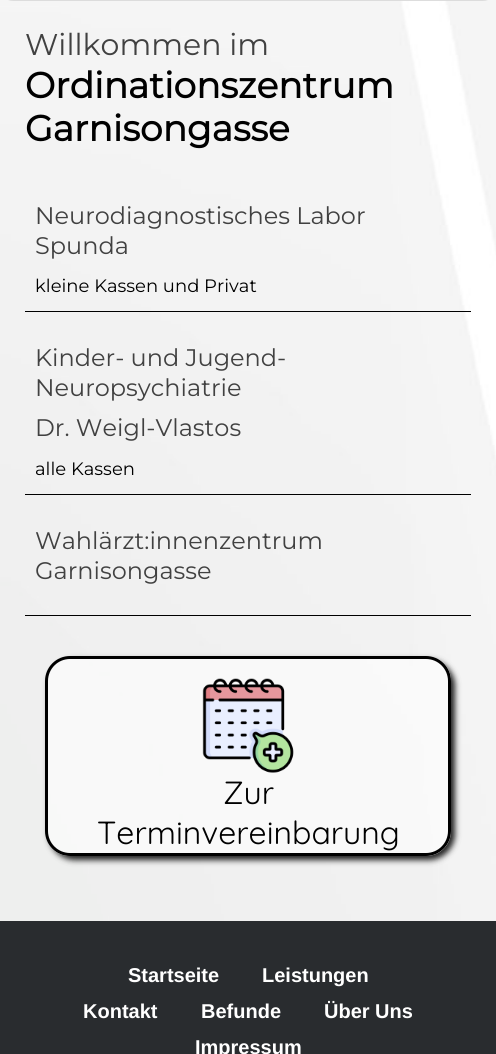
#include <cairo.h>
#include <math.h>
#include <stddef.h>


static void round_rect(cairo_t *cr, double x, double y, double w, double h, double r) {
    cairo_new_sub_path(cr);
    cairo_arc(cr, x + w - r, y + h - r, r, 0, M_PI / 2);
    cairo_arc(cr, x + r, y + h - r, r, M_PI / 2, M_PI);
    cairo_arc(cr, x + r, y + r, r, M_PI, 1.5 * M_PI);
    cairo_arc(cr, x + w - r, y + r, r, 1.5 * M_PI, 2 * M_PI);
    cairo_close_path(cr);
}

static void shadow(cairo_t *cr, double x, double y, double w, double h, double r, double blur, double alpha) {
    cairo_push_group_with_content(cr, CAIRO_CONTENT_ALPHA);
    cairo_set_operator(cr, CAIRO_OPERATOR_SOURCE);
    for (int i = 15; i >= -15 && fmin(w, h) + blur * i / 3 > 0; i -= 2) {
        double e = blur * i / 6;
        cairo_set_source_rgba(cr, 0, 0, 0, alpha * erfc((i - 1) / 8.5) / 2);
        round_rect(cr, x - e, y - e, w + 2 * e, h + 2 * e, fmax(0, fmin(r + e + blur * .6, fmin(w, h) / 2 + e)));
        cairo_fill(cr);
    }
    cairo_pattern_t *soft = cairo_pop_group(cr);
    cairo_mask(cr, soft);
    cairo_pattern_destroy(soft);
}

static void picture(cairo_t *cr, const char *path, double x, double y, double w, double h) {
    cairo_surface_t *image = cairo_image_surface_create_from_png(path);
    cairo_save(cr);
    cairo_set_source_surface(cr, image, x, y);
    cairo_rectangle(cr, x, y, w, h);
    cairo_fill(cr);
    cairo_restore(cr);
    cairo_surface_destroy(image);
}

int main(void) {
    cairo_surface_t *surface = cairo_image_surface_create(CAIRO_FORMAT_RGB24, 496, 1054);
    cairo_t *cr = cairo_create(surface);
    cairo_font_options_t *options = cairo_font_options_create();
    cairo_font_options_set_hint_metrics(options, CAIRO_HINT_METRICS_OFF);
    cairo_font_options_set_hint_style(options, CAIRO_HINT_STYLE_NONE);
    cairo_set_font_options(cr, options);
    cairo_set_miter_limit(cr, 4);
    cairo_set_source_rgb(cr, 1, 1, 1);
    cairo_paint(cr);
    picture(cr, "img1.png", 0, 0, 496, 921);
    cairo_set_source_rgba(cr, 1, 1, 1, 0.6);
    cairo_new_path(cr);
    cairo_move_to(cr, 0, -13);
    cairo_line_to(cr, 496, -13);
    cairo_line_to(cr, 496, -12);
    cairo_curve_to(cr, 496, -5, 490, 1, 483, 1);
    cairo_line_to(cr, 13, 1);
    cairo_curve_to(cr, 6, 1, 0, -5, 0, -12);
    cairo_close_path(cr);
    cairo_fill(cr);
    cairo_new_path(cr);
    cairo_move_to(cr, 0.5, -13.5);
    cairo_line_to(cr, 495.5, -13.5);
    cairo_line_to(cr, 495.5, -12);
    cairo_curve_to(cr, 495.5, -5, 490, 0.5, 483, 0.5);
    cairo_line_to(cr, 13, 0.5);
    cairo_curve_to(cr, 6, 0.5, 0.5, -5, 0.5, -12);
    cairo_close_path(cr);
    cairo_set_source_rgba(cr, 0.835, 0.835, 0.835, 0.79);
    cairo_set_line_width(cr, 1);
    cairo_stroke(cr);
    cairo_select_font_face(cr, "Montserrat Thin", CAIRO_FONT_SLANT_NORMAL, CAIRO_FONT_WEIGHT_NORMAL);
    cairo_set_font_size(cr, 30);
    cairo_set_source_rgb(cr, 0.255, 0.255, 0.255);
    cairo_move_to(cr, 25, 55);
    cairo_show_text(cr, "Willkommen im");
    cairo_select_font_face(cr, "Montserrat", CAIRO_FONT_SLANT_NORMAL, CAIRO_FONT_WEIGHT_BOLD);
    cairo_set_font_size(cr, 36);
    cairo_set_source_rgb(cr, 0, 0, 0);
    cairo_move_to(cr, 25, 98);
    cairo_show_text(cr, "Ordinationszentrum");
    cairo_move_to(cr, 25, 141);
    cairo_show_text(cr, "Garnisongasse");
    cairo_rectangle(cr, 25, 311, 446, 1);
    cairo_fill(cr);
    cairo_select_font_face(cr, "Montserrat Thin", CAIRO_FONT_SLANT_NORMAL, CAIRO_FONT_WEIGHT_NORMAL);
    cairo_set_font_size(cr, 24);
    cairo_set_source_rgb(cr, 0.255, 0.255, 0.255);
    cairo_move_to(cr, 35, 224);
    cairo_show_text(cr, "Neurodiagnostisches Labor");
    cairo_move_to(cr, 35, 254);
    cairo_show_text(cr, "Spunda");
    cairo_set_font_size(cr, 18);
    cairo_set_source_rgb(cr, 0, 0, 0);
    cairo_move_to(cr, 35, 292);
    cairo_show_text(cr, "kleine Kassen und Privat");
    cairo_rectangle(cr, 25, 494, 446, 1);
    cairo_fill(cr);
    cairo_set_font_size(cr, 24);
    cairo_set_source_rgb(cr, 0.255, 0.255, 0.255);
    cairo_move_to(cr, 35, 366);
    cairo_show_text(cr, "Kinder- und Jugend-");
    cairo_move_to(cr, 35, 396);
    cairo_show_text(cr, "Neuropsychiatrie");
    cairo_move_to(cr, 35, 436);
    cairo_show_text(cr, "Dr. Weigl-Vlastos");
    cairo_set_font_size(cr, 18);
    cairo_set_source_rgb(cr, 0, 0, 0);
    cairo_move_to(cr, 35, 475);
    cairo_show_text(cr, "alle Kassen");
    cairo_rectangle(cr, 25, 615, 446, 1);
    cairo_fill(cr);
    cairo_set_font_size(cr, 24);
    cairo_set_source_rgb(cr, 0.255, 0.255, 0.255);
    cairo_move_to(cr, 35, 549);
    cairo_show_text(cr, "Wahlärzt:innenzentrum");
    cairo_move_to(cr, 35, 579);
    cairo_show_text(cr, "Garnisongasse");
    cairo_save(cr);
    cairo_set_fill_rule(cr, CAIRO_FILL_RULE_EVEN_ODD);
    cairo_new_path(cr);
    cairo_move_to(cr, 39, 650);
    cairo_line_to(cr, 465, 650);
    cairo_line_to(cr, 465, 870);
    cairo_line_to(cr, 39, 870);
    cairo_close_path(cr);
    cairo_move_to(cr, 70, 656);
    cairo_line_to(cr, 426, 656);
    cairo_curve_to(cr, 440, 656, 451, 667, 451, 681);
    cairo_line_to(cr, 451, 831);
    cairo_curve_to(cr, 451, 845, 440, 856, 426, 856);
    cairo_line_to(cr, 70, 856);
    cairo_curve_to(cr, 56, 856, 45, 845, 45, 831);
    cairo_line_to(cr, 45, 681);
    cairo_curve_to(cr, 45, 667, 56, 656, 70, 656);
    cairo_close_path(cr);
    cairo_clip(cr);
    cairo_set_source_rgb(cr, 0.129, 0.129, 0.129);
    shadow(cr, 49, 660, 406, 200, 25, 3, 1);
    cairo_restore(cr);
    cairo_set_source_rgba(cr, 1, 1, 1, 0.6);
    round_rect(cr, 46.5, 657.5, 403, 197, 23.5);
    cairo_fill_preserve(cr);
    cairo_set_source_rgb(cr, 0, 0, 0);
    cairo_set_line_width(cr, 3);
    cairo_stroke(cr);
    picture(cr, "img2.png", 202, 678, 92, 95);
    cairo_select_font_face(cr, "Quicksand Light", CAIRO_FONT_SLANT_NORMAL, CAIRO_FONT_WEIGHT_NORMAL);
    cairo_set_font_size(cr, 32);
    cairo_move_to(cr, 223, 804);
    cairo_show_text(cr, "Zur");
    cairo_move_to(cr, 97, 844);
    cairo_show_text(cr, "Terminvereinbarung");
    cairo_set_source_rgb(cr, 0.161, 0.173, 0.184);
    cairo_rectangle(cr, 0, 921, 496, 133);
    cairo_fill(cr);
    cairo_select_font_face(cr, "Liberation Sans", CAIRO_FONT_SLANT_NORMAL, CAIRO_FONT_WEIGHT_BOLD);
    cairo_set_font_size(cr, 20);
    cairo_set_source_rgb(cr, 1, 1, 1);
    cairo_move_to(cr, 128, 982);
    cairo_show_text(cr, "Startseite");
    cairo_move_to(cr, 262, 982);
    cairo_show_text(cr, "Leistungen");
    cairo_move_to(cr, 83, 1018);
    cairo_show_text(cr, "Kontakt");
    cairo_move_to(cr, 201, 1018);
    cairo_show_text(cr, "Befunde");
    cairo_move_to(cr, 324, 1018);
    cairo_show_text(cr, "Über Uns");
    cairo_move_to(cr, 195, 1054);
    cairo_show_text(cr, "Impressum");
    cairo_surface_write_to_png(surface, "page.png");
    cairo_font_options_destroy(options);
    cairo_destroy(cr);
    cairo_surface_destroy(surface);
    return 0;
}
